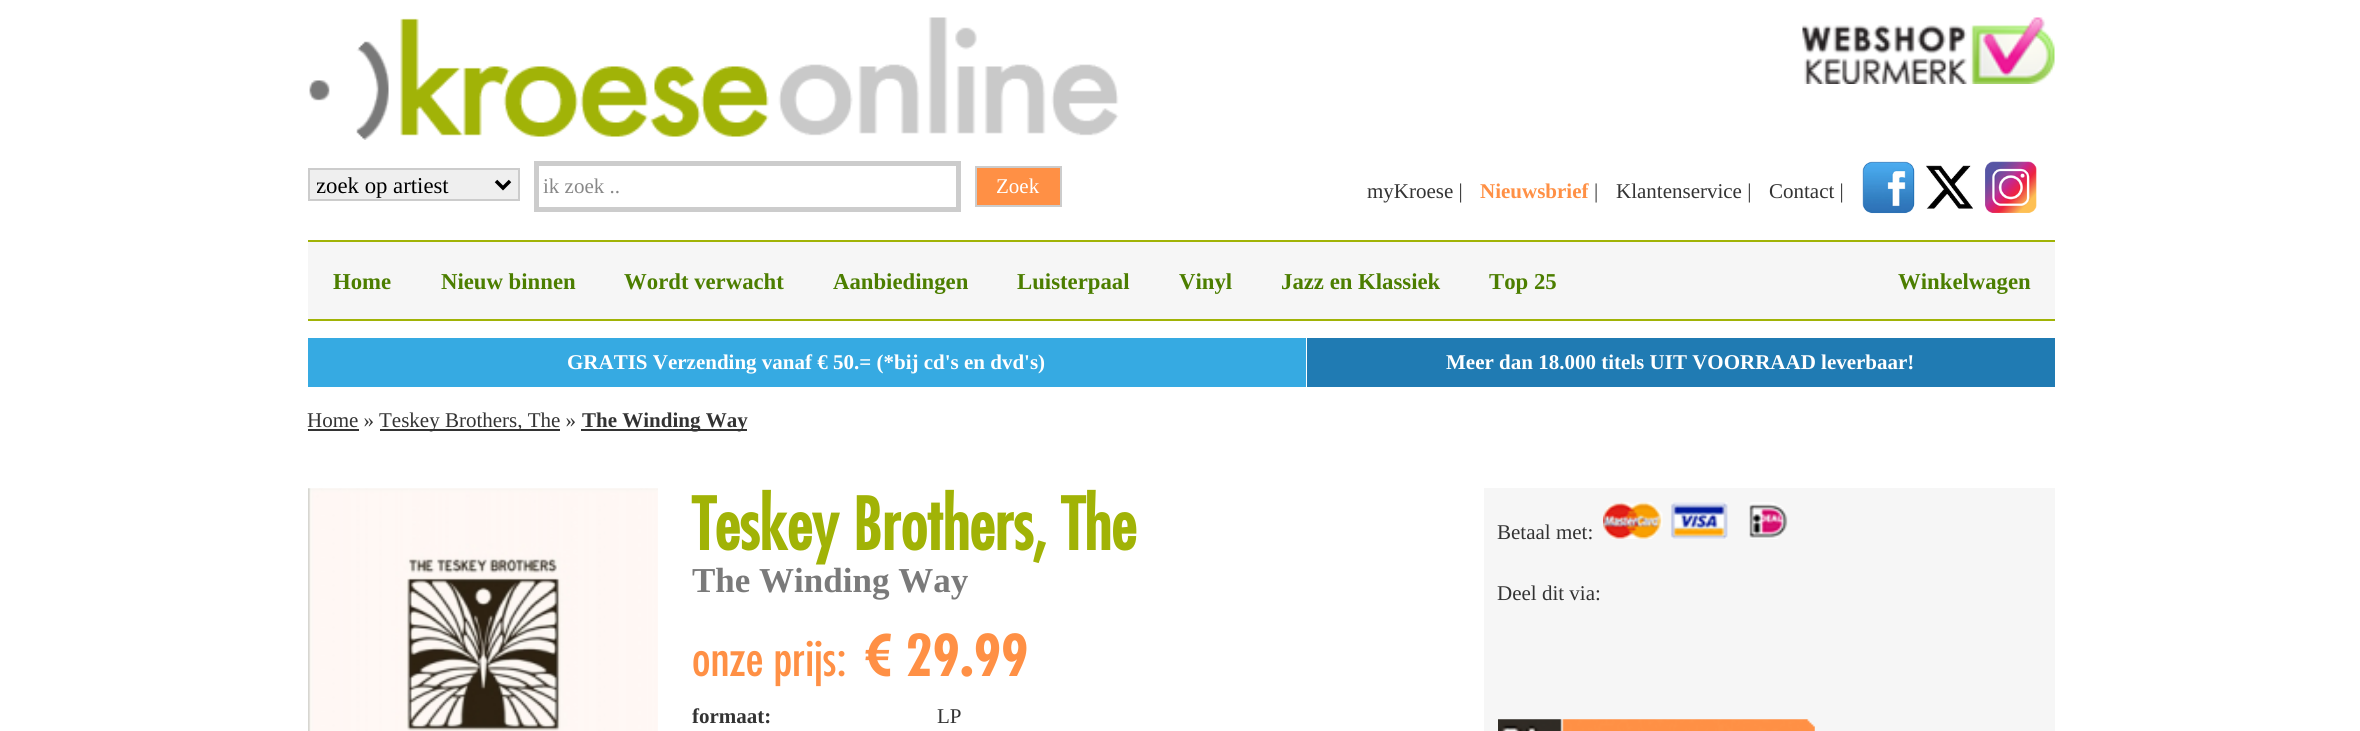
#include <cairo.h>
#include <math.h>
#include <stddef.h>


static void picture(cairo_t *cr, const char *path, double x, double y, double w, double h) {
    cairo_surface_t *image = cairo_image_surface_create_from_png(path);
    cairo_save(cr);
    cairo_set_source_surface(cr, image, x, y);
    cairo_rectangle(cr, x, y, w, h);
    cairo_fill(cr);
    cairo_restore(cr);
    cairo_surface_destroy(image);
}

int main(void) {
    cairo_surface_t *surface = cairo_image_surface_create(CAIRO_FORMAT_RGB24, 2360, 731);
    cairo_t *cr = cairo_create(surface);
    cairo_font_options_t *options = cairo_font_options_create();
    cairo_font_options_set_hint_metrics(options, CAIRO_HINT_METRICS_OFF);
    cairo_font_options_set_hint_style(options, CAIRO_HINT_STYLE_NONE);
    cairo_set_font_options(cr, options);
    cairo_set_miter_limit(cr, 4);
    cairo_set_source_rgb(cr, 1, 1, 1);
    cairo_paint(cr);
    picture(cr, "img1.png", 309, 17, 810, 123);
    picture(cr, "img2.png", 1802, 17, 253, 67);
    cairo_set_source_rgb(cr, 0.937, 0.937, 0.937);
    cairo_rectangle(cr, 309, 169, 210, 31);
    cairo_fill_preserve(cr);
    cairo_set_source_rgb(cr, 0.8, 0.8, 0.8);
    cairo_stroke(cr);
    cairo_new_path(cr);
    cairo_move_to(cr, 496, 181);
    cairo_line_to(cr, 503, 188);
    cairo_line_to(cr, 510, 181);
    cairo_set_source_rgb(cr, 0, 0, 0);
    cairo_set_line_width(cr, 3.5);
    cairo_stroke(cr);
    cairo_save(cr);
    cairo_rectangle(cr, 317, 170, 173, 30);
    cairo_clip(cr);
    cairo_select_font_face(cr, "Liberation Serif", CAIRO_FONT_SLANT_NORMAL, CAIRO_FONT_WEIGHT_NORMAL);
    cairo_set_font_size(cr, 22.75);
    cairo_move_to(cr, 316, 193);
    cairo_show_text(cr, "zoek op artiest");
    cairo_restore(cr);
    cairo_rectangle(cr, 536.5, 163.5, 422, 46);
    cairo_set_source_rgb(cr, 0.8, 0.8, 0.8);
    cairo_set_line_width(cr, 5);
    cairo_stroke(cr);
    cairo_select_font_face(cr, "Liberation Serif", CAIRO_FONT_SLANT_NORMAL, CAIRO_FONT_WEIGHT_NORMAL);
    cairo_set_font_size(cr, 21);
    cairo_set_source_rgb(cr, 0.533, 0.533, 0.533);
    cairo_move_to(cr, 543, 193);
    cairo_show_text(cr, "ik zoek ..");
    cairo_set_source_rgb(cr, 1, 0.565, 0.271);
    cairo_rectangle(cr, 976, 167, 85, 39);
    cairo_fill_preserve(cr);
    cairo_set_source_rgb(cr, 0.8, 0.8, 0.8);
    cairo_set_line_width(cr, 2);
    cairo_stroke(cr);
    cairo_set_source_rgb(cr, 1, 1, 1);
    cairo_move_to(cr, 996, 193);
    cairo_show_text(cr, "Zoek");
    cairo_set_source_rgb(cr, 0.2, 0.2, 0.2);
    cairo_move_to(cr, 1367, 198);
    cairo_show_text(cr, "myKroese |");
    cairo_select_font_face(cr, "Liberation Serif", CAIRO_FONT_SLANT_NORMAL, CAIRO_FONT_WEIGHT_BOLD);
    cairo_set_source_rgb(cr, 1, 0.565, 0.271);
    cairo_move_to(cr, 1480, 198);
    cairo_show_text(cr, "Nieuwsbrief");
    cairo_select_font_face(cr, "Liberation Serif", CAIRO_FONT_SLANT_NORMAL, CAIRO_FONT_WEIGHT_NORMAL);
    cairo_set_source_rgb(cr, 0.2, 0.2, 0.2);
    cairo_move_to(cr, 1594, 198);
    cairo_show_text(cr, "|");
    cairo_move_to(cr, 1616, 198);
    cairo_show_text(cr, "Klantenservice |");
    cairo_move_to(cr, 1769, 198);
    cairo_show_text(cr, "Contact |");
    picture(cr, "img3.png", 1862, 161, 53, 53);
    picture(cr, "img4.png", 1926, 165, 47, 44);
    picture(cr, "img5.png", 1985, 161, 52, 52);
    cairo_set_source_rgb(cr, 0.961, 0.961, 0.961);
    cairo_rectangle(cr, 308, 242, 1747, 77);
    cairo_fill(cr);
    cairo_set_source_rgb(cr, 0.631, 0.702, 0.027);
    cairo_rectangle(cr, 308, 240, 1747, 2);
    cairo_fill(cr);
    cairo_rectangle(cr, 308, 319, 1747, 2);
    cairo_fill(cr);
    cairo_select_font_face(cr, "Liberation Serif", CAIRO_FONT_SLANT_NORMAL, CAIRO_FONT_WEIGHT_BOLD);
    cairo_set_font_size(cr, 22.75);
    cairo_set_source_rgb(cr, 0.298, 0.494, 0);
    cairo_move_to(cr, 333, 289);
    cairo_show_text(cr, "Home");
    cairo_move_to(cr, 441, 289);
    cairo_show_text(cr, "Nieuw binnen");
    cairo_move_to(cr, 624, 289);
    cairo_show_text(cr, "Wordt verwacht");
    cairo_move_to(cr, 833, 289);
    cairo_show_text(cr, "Aanbiedingen");
    cairo_move_to(cr, 1017, 289);
    cairo_show_text(cr, "Luisterpaal");
    cairo_move_to(cr, 1179, 289);
    cairo_show_text(cr, "Vinyl");
    cairo_move_to(cr, 1281, 289);
    cairo_show_text(cr, "Jazz en Klassiek");
    cairo_move_to(cr, 1489, 289);
    cairo_show_text(cr, "Top 25");
    cairo_move_to(cr, 1898, 289);
    cairo_show_text(cr, "Winkelwagen");
    cairo_set_source_rgb(cr, 0.212, 0.667, 0.886);
    cairo_rectangle(cr, 308, 338, 998, 49);
    cairo_fill(cr);
    cairo_set_font_size(cr, 21);
    cairo_set_source_rgb(cr, 1, 1, 1);
    cairo_move_to(cr, 567, 369);
    cairo_show_text(cr, "GRATIS Verzending vanaf € 50.= (*bij cd's en dvd's)");
    cairo_set_source_rgb(cr, 0.125, 0.482, 0.702);
    cairo_rectangle(cr, 1307, 338, 748, 49);
    cairo_fill(cr);
    cairo_set_source_rgb(cr, 1, 1, 1);
    cairo_move_to(cr, 1446, 369);
    cairo_show_text(cr, "Meer dan 18.000 titels UIT VOORRAAD leverbaar!");
    cairo_select_font_face(cr, "Liberation Serif", CAIRO_FONT_SLANT_NORMAL, CAIRO_FONT_WEIGHT_NORMAL);
    cairo_set_source_rgb(cr, 0.2, 0.2, 0.2);
    cairo_move_to(cr, 307, 427);
    cairo_show_text(cr, "Home »");
    cairo_rectangle(cr, 308, 429, 51, 2);
    cairo_fill(cr);
    cairo_rectangle(cr, 380, 429, 180, 2);
    cairo_fill(cr);
    cairo_move_to(cr, 379, 427);
    cairo_show_text(cr, "Teskey Brothers, The »");
    cairo_rectangle(cr, 581, 429, 166, 2);
    cairo_fill(cr);
    cairo_select_font_face(cr, "Liberation Serif", CAIRO_FONT_SLANT_NORMAL, CAIRO_FONT_WEIGHT_BOLD);
    cairo_move_to(cr, 582, 427);
    cairo_show_text(cr, "The Winding Way");
    picture(cr, "img6.png", 308, 488, 350, 243);
    cairo_select_font_face(cr, "Futura", CAIRO_FONT_SLANT_NORMAL, CAIRO_FONT_WEIGHT_BOLD);
    cairo_set_font_size(cr, 70);
    cairo_set_source_rgb(cr, 0.631, 0.702, 0.027);
    cairo_move_to(cr, 692, 550);
    cairo_show_text(cr, "Teskey Brothers, The");
    cairo_select_font_face(cr, "Liberation Serif", CAIRO_FONT_SLANT_NORMAL, CAIRO_FONT_WEIGHT_BOLD);
    cairo_set_font_size(cr, 35);
    cairo_set_source_rgb(cr, 0.478, 0.478, 0.478);
    cairo_move_to(cr, 692, 592);
    cairo_show_text(cr, "The Winding Way");
    cairo_select_font_face(cr, "Futura Medium", CAIRO_FONT_SLANT_NORMAL, CAIRO_FONT_WEIGHT_NORMAL);
    cairo_set_font_size(cr, 49);
    cairo_set_source_rgb(cr, 1, 0.565, 0.271);
    cairo_move_to(cr, 692, 676);
    cairo_show_text(cr, "onze prijs:");
    cairo_select_font_face(cr, "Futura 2", CAIRO_FONT_SLANT_NORMAL, CAIRO_FONT_WEIGHT_BOLD);
    cairo_set_font_size(cr, 56);
    cairo_move_to(cr, 864, 676);
    cairo_show_text(cr, "€ 29.99");
    cairo_select_font_face(cr, "Liberation Serif", CAIRO_FONT_SLANT_NORMAL, CAIRO_FONT_WEIGHT_BOLD);
    cairo_set_font_size(cr, 21);
    cairo_set_source_rgb(cr, 0.2, 0.2, 0.2);
    cairo_move_to(cr, 692, 723);
    cairo_show_text(cr, "formaat:");
    cairo_select_font_face(cr, "Liberation Serif", CAIRO_FONT_SLANT_NORMAL, CAIRO_FONT_WEIGHT_NORMAL);
    cairo_move_to(cr, 937, 723);
    cairo_show_text(cr, "LP");
    cairo_set_source_rgb(cr, 0.961, 0.961, 0.961);
    cairo_rectangle(cr, 1484, 488, 571, 243);
    cairo_fill(cr);
    cairo_set_source_rgb(cr, 0.2, 0.2, 0.2);
    cairo_move_to(cr, 1497, 539);
    cairo_show_text(cr, "Betaal met:");
    picture(cr, "img7.png", 1603, 502, 185, 37);
    cairo_move_to(cr, 1497, 600);
    cairo_show_text(cr, "Deel dit via:");
    picture(cr, "img8.png", 1498, 719, 317, 12);
    cairo_surface_write_to_png(surface, "page.png");
    cairo_font_options_destroy(options);
    cairo_destroy(cr);
    cairo_surface_destroy(surface);
    return 0;
}
